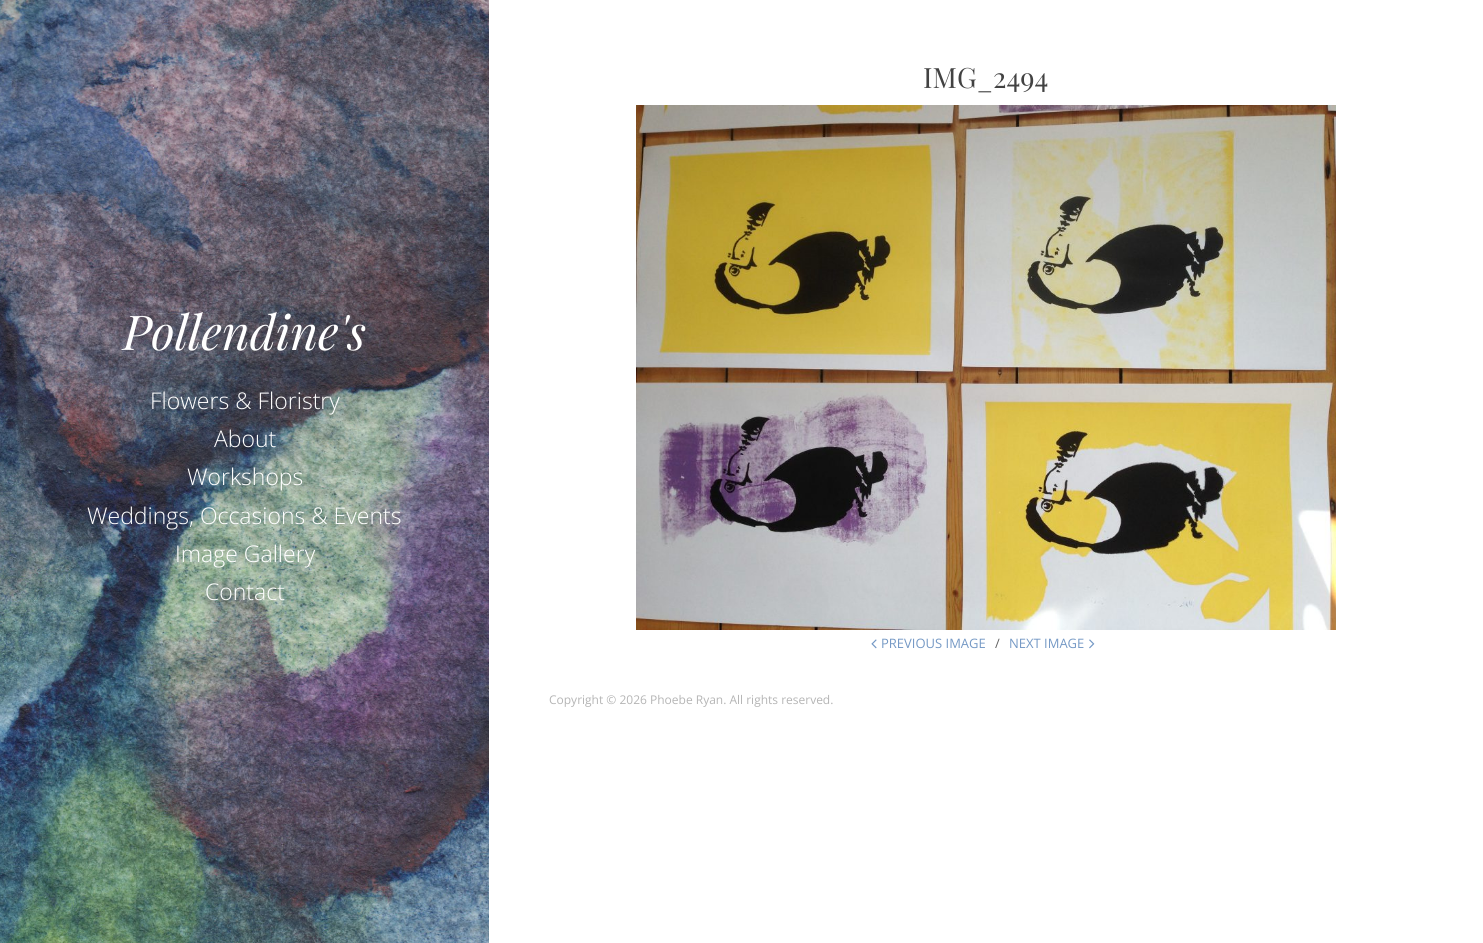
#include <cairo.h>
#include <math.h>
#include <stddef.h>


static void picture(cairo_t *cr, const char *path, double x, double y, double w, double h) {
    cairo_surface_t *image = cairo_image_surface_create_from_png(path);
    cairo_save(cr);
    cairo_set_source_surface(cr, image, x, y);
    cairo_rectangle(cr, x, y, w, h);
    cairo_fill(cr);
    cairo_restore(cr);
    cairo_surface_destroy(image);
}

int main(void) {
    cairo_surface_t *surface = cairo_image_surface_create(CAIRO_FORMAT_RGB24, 1483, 943);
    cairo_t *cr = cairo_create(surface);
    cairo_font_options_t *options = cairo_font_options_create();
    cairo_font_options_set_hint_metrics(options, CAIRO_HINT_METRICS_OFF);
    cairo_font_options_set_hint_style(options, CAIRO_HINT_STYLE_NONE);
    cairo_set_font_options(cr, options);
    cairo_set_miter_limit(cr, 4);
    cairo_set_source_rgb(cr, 1, 1, 1);
    cairo_paint(cr);
    picture(cr, "img1.png", 0, 0, 489, 943);
    cairo_select_font_face(cr, "Playfair Display", CAIRO_FONT_SLANT_ITALIC, CAIRO_FONT_WEIGHT_NORMAL);
    cairo_set_font_size(cr, 48);
    cairo_set_source_rgb(cr, 1, 1, 1);
    cairo_move_to(cr, 123, 350);
    cairo_show_text(cr, "Pollendine's");
    cairo_select_font_face(cr, "Open Sans Light", CAIRO_FONT_SLANT_NORMAL, CAIRO_FONT_WEIGHT_NORMAL);
    cairo_set_font_size(cr, 23);
    cairo_move_to(cr, 150, 409);
    cairo_show_text(cr, "Flowers & Floristry");
    cairo_move_to(cr, 214, 447);
    cairo_show_text(cr, "About");
    cairo_move_to(cr, 187, 485);
    cairo_show_text(cr, "Workshops");
    cairo_move_to(cr, 87, 524);
    cairo_show_text(cr, "Weddings, Occasions & Events");
    cairo_move_to(cr, 175, 562);
    cairo_show_text(cr, "Image Gallery");
    cairo_move_to(cr, 205, 600);
    cairo_show_text(cr, "Contact");
    cairo_select_font_face(cr, "Playfair Display", CAIRO_FONT_SLANT_NORMAL, CAIRO_FONT_WEIGHT_NORMAL);
    cairo_set_font_size(cr, 28);
    cairo_set_source_rgb(cr, 0.259, 0.259, 0.259);
    cairo_move_to(cr, 923, 88);
    cairo_show_text(cr, "IMG_2494");
    picture(cr, "img2.png", 636, 105, 700, 525);
    picture(cr, "img3.png", 871, 639, 6, 10);
    cairo_select_font_face(cr, "Open Sans", CAIRO_FONT_SLANT_NORMAL, CAIRO_FONT_WEIGHT_NORMAL);
    cairo_set_font_size(cr, 13);
    cairo_set_source_rgb(cr, 0.459, 0.6, 0.773);
    cairo_move_to(cr, 881, 648);
    cairo_show_text(cr, "PREVIOUS IMAGE");
    cairo_set_source_rgb(cr, 0.38, 0.38, 0.38);
    cairo_move_to(cr, 995, 648);
    cairo_show_text(cr, "∕");
    cairo_set_source_rgb(cr, 0.459, 0.6, 0.773);
    cairo_move_to(cr, 1009, 648);
    cairo_show_text(cr, "NEXT IMAGE");
    picture(cr, "img4.png", 1089, 639, 6, 10);
    cairo_set_font_size(cr, 12);
    cairo_set_source_rgb(cr, 0.71, 0.71, 0.71);
    cairo_move_to(cr, 549, 704);
    cairo_show_text(cr, "Copyright © 2026 Phoebe Ryan. All rights reserved.");
    cairo_surface_write_to_png(surface, "page.png");
    cairo_font_options_destroy(options);
    cairo_destroy(cr);
    cairo_surface_destroy(surface);
    return 0;
}
